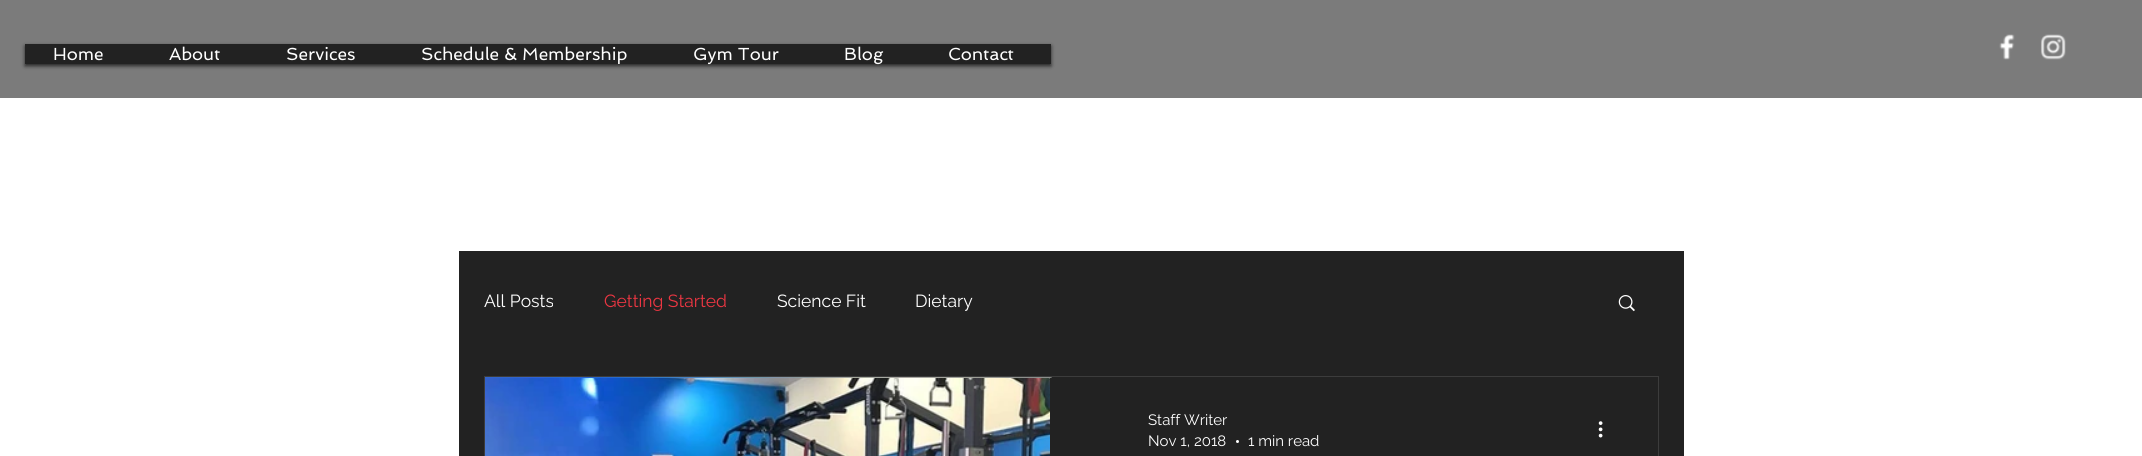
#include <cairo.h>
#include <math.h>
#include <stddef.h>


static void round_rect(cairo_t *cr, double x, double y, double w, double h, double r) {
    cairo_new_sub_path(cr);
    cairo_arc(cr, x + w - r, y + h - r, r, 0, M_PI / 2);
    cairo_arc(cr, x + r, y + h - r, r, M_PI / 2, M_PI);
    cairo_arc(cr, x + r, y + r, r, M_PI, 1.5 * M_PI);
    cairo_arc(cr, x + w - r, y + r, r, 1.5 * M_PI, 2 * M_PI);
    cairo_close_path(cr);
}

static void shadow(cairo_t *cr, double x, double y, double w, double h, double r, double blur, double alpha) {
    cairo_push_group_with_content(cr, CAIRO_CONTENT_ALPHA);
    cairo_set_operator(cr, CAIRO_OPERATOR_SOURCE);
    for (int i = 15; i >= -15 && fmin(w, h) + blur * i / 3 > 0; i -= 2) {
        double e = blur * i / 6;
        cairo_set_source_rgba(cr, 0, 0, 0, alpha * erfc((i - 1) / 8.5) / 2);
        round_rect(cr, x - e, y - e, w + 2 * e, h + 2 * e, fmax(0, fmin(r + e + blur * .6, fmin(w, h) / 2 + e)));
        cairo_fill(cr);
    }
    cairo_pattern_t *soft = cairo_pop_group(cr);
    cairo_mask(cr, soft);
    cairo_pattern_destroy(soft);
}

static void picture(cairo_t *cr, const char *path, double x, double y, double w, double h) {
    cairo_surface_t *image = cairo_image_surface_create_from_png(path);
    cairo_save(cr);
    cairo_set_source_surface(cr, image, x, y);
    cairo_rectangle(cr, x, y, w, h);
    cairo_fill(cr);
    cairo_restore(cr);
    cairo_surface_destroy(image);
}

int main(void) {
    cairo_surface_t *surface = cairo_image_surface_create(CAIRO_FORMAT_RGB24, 2142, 456);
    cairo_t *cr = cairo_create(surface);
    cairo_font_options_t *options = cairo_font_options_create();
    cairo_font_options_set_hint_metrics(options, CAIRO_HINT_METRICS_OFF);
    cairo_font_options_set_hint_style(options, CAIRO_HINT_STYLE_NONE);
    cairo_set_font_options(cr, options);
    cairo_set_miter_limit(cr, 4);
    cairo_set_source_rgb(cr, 1, 1, 1);
    cairo_paint(cr);
    cairo_set_source_rgb(cr, 0.482, 0.482, 0.482);
    cairo_rectangle(cr, 0, 0, 2142, 98);
    cairo_fill(cr);
    cairo_set_source_rgb(cr, 0, 0, 0);
    shadow(cr, 25, 46, 1026, 20, 0, 2, 0.7);
    cairo_set_source_rgb(cr, 0.133, 0.133, 0.133);
    cairo_rectangle(cr, 25, 44, 1026, 20);
    cairo_fill(cr);
    cairo_select_font_face(cr, "Spinnaker", CAIRO_FONT_SLANT_NORMAL, CAIRO_FONT_WEIGHT_NORMAL);
    cairo_set_font_size(cr, 17.5);
    cairo_set_source_rgb(cr, 1, 1, 1);
    cairo_move_to(cr, 53, 60);
    cairo_show_text(cr, "Home");
    cairo_move_to(cr, 169, 60);
    cairo_show_text(cr, "About");
    cairo_move_to(cr, 286, 60);
    cairo_show_text(cr, "Services");
    cairo_move_to(cr, 421, 60);
    cairo_show_text(cr, "Schedule & Membership");
    cairo_move_to(cr, 693, 60);
    cairo_show_text(cr, "Gym Tour");
    cairo_move_to(cr, 844, 60);
    cairo_show_text(cr, "Blog");
    cairo_move_to(cr, 948, 60);
    cairo_show_text(cr, "Contact");
    picture(cr, "img1.png", 1999, 34, 16, 26);
    picture(cr, "img2.png", 2040, 34, 26, 26);
    cairo_set_source_rgb(cr, 0.133, 0.133, 0.133);
    cairo_rectangle(cr, 459, 251, 1225, 205);
    cairo_fill(cr);
    cairo_select_font_face(cr, "Raleway", CAIRO_FONT_SLANT_NORMAL, CAIRO_FONT_WEIGHT_NORMAL);
    cairo_set_source_rgb(cr, 1, 1, 1);
    cairo_move_to(cr, 484, 307);
    cairo_show_text(cr, "All Posts");
    cairo_set_source_rgb(cr, 0.925, 0.212, 0.259);
    cairo_move_to(cr, 604, 307);
    cairo_show_text(cr, "Getting Started");
    cairo_set_source_rgb(cr, 1, 1, 1);
    cairo_move_to(cr, 777, 307);
    cairo_show_text(cr, "Science Fit");
    cairo_move_to(cr, 915, 307);
    cairo_show_text(cr, "Dietary");
    picture(cr, "img3.png", 1618, 295, 17, 17);
    cairo_rectangle(cr, 484.5, 376.5, 1174, 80);
    cairo_set_source_rgb(cr, 0.235, 0.235, 0.235);
    cairo_set_line_width(cr, 1);
    cairo_stroke(cr);
    picture(cr, "img4.png", 485, 377, 567, 1);
    picture(cr, "img5.png", 485, 378, 565, 78);
    cairo_set_font_size(cr, 15);
    cairo_set_source_rgb(cr, 1, 1, 1);
    cairo_move_to(cr, 1148, 425);
    cairo_show_text(cr, "Staff Writer");
    cairo_move_to(cr, 1148, 446);
    cairo_show_text(cr, "Nov 1, 2018");
    cairo_new_path(cr);
    cairo_arc(cr, 1237.5, 441.5, 1.5, 0, 2 * M_PI);
    cairo_fill(cr);
    cairo_move_to(cr, 1248, 446);
    cairo_show_text(cr, "1 min read");
    picture(cr, "img6.png", 1598, 421, 5, 17);
    cairo_surface_write_to_png(surface, "page.png");
    cairo_font_options_destroy(options);
    cairo_destroy(cr);
    cairo_surface_destroy(surface);
    return 0;
}
